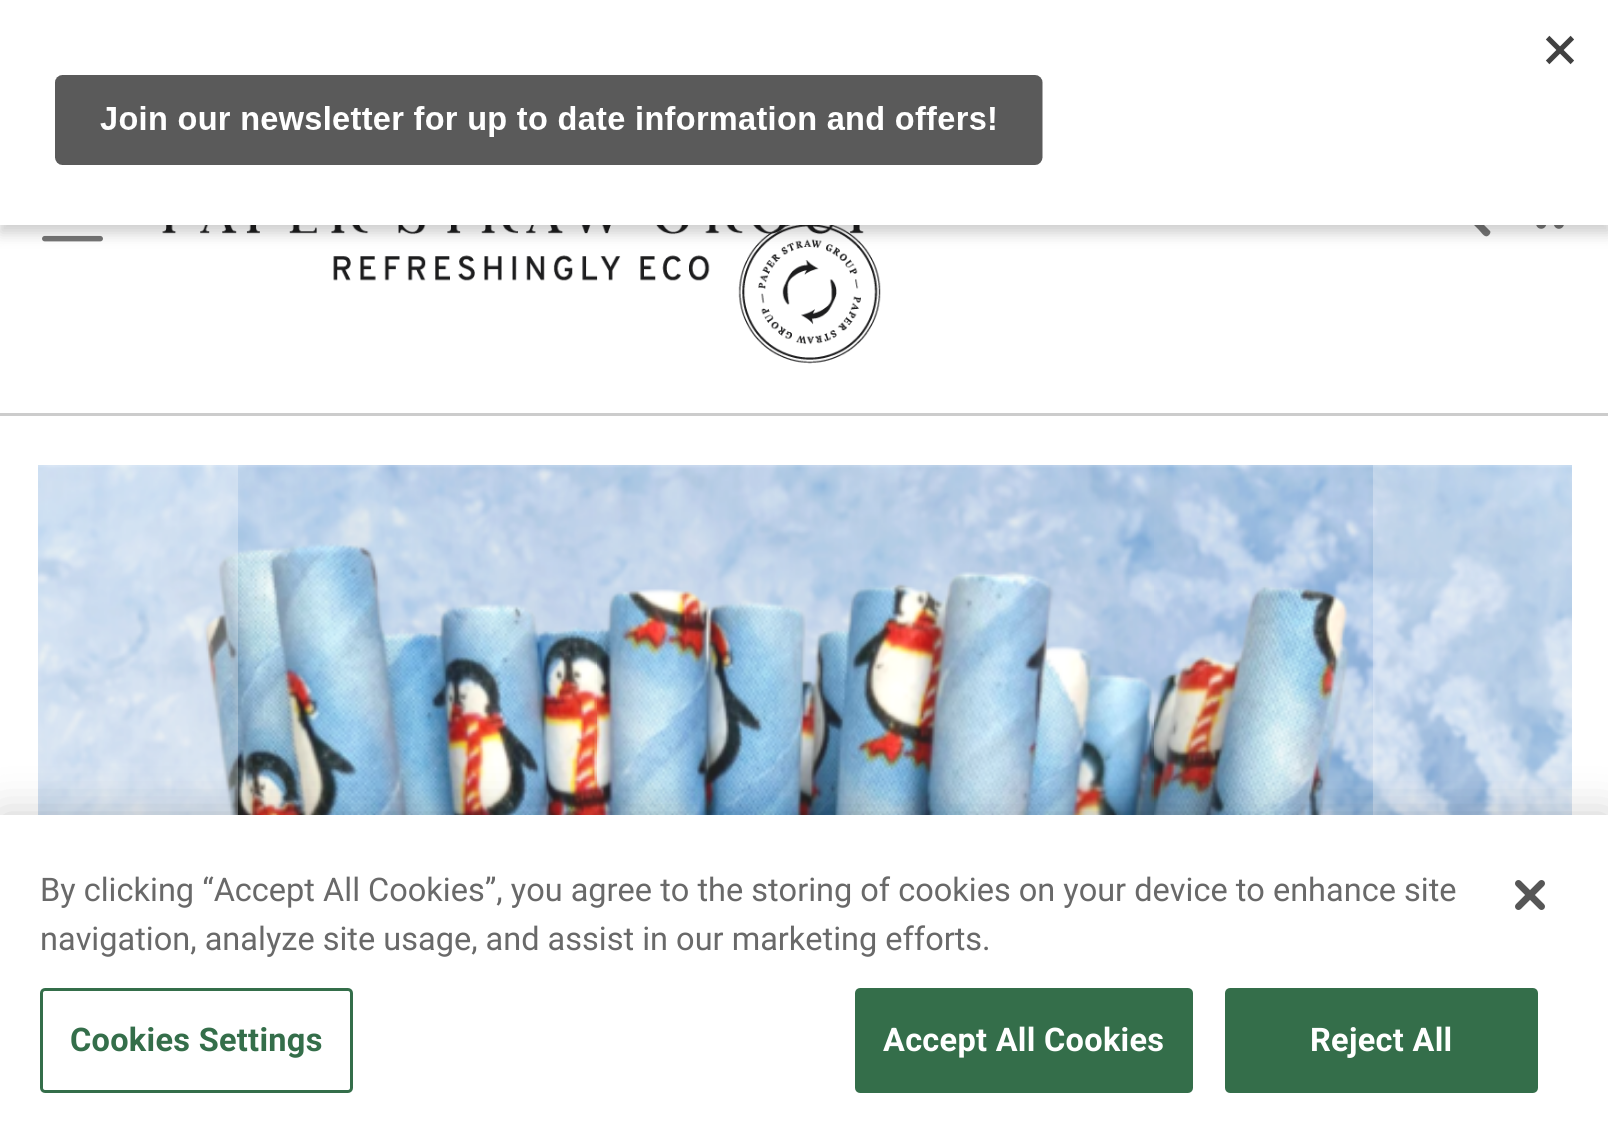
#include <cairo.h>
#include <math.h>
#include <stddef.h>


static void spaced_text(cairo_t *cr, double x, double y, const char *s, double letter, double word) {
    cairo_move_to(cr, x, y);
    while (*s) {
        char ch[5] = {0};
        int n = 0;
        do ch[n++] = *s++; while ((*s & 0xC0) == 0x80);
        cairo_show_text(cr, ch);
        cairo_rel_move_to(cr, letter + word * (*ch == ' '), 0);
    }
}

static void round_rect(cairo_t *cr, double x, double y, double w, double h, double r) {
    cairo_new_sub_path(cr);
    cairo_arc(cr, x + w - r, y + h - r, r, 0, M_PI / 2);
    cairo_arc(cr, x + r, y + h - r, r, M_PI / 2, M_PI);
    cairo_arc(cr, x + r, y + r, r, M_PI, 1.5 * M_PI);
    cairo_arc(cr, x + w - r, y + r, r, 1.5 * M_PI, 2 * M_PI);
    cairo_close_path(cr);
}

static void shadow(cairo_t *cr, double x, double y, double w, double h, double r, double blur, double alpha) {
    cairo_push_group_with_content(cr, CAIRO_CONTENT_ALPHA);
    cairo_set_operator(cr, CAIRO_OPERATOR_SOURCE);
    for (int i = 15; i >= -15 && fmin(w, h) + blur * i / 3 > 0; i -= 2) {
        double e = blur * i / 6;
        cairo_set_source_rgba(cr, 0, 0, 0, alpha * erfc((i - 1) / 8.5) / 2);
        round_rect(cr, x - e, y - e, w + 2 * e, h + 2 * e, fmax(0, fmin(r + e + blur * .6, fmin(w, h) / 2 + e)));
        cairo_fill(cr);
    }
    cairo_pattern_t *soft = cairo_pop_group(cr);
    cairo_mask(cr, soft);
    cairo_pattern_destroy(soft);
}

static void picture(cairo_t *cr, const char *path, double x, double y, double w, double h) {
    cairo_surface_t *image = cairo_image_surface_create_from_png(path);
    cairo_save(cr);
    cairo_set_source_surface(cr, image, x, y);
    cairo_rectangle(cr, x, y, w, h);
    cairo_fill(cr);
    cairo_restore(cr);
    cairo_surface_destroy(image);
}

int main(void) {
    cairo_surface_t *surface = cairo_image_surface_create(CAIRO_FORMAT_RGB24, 1608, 1127);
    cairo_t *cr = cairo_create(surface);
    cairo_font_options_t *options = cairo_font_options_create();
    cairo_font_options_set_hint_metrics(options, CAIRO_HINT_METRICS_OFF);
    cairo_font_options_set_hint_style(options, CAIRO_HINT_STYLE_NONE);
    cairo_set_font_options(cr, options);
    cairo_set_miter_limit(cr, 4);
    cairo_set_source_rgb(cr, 1, 1, 1);
    cairo_paint(cr);
    cairo_set_source_rgb(cr, 0.459, 0.459, 0.459);
    cairo_new_path(cr);
    cairo_move_to(cr, 1490, 231);
    cairo_line_to(cr, 1476, 217);
    cairo_curve_to(cr, 1479, 212, 1480, 206, 1478, 200);
    cairo_curve_to(cr, 1470, 173, 1429, 189, 1442, 214);
    cairo_curve_to(cr, 1447, 225, 1461, 228, 1471, 222);
    cairo_line_to(cr, 1479, 230);
    cairo_curve_to(cr, 1482, 233, 1485, 239, 1489, 235);
    cairo_curve_to(cr, 1490, 234, 1491, 232, 1490, 231);
    cairo_close_path(cr);
    cairo_move_to(cr, 1473, 211);
    cairo_curve_to(cr, 1466, 228, 1439, 217, 1446, 200);
    cairo_curve_to(cr, 1453, 183, 1480, 193, 1473, 211);
    cairo_close_path(cr);
    cairo_fill(cr);
    picture(cr, "img2.png", 162, 225, 719, 139);
    picture(cr, "img3.png", 1536, 225, 28, 4);
    picture(cr, "img4.png", 42, 235, 61, 7);
    cairo_set_source_rgb(cr, 0, 0, 0);
    shadow(cr, 0, 8, 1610, 225, 0, 7.5, 0.2);
    cairo_set_source_rgb(cr, 1, 1, 1);
    cairo_rectangle(cr, 0, 0, 1608, 225);
    cairo_fill(cr);
    picture(cr, "img1.png", 55, 35, 1519, 130);
    cairo_set_source_rgb(cr, 0.8, 0.8, 0.8);
    cairo_rectangle(cr, 0, 413, 1608, 3);
    cairo_fill(cr);
    picture(cr, "img5.png", 38, 465, 1534, 350);
    cairo_set_source_rgba(cr, 1, 1, 1, 0.3);
    cairo_rectangle(cr, 38, 465, 200, 350);
    cairo_fill(cr);
    cairo_rectangle(cr, 1373, 465, 199, 350);
    cairo_fill(cr);
    cairo_set_source_rgb(cr, 0, 0, 0);
    shadow(cr, 0, 815, 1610, 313, 0, 22.5, 0.2);
    cairo_set_source_rgb(cr, 1, 1, 1);
    cairo_rectangle(cr, 0, 815, 1608, 312);
    cairo_fill(cr);
    cairo_select_font_face(cr, "Roboto", CAIRO_FONT_SLANT_NORMAL, CAIRO_FONT_WEIGHT_NORMAL);
    cairo_set_font_size(cr, 32.5);
    cairo_set_source_rgb(cr, 0.412, 0.412, 0.412);
    cairo_move_to(cr, 40, 901);
    cairo_show_text(cr, "By clicking “Accept All Cookies”, you agree to the storing of cookies on your device to enhance site");
    cairo_move_to(cr, 40, 950);
    cairo_show_text(cr, "navigation, analyze site usage, and assist in our marketing efforts.");
    round_rect(cr, 41.5, 989.5, 310, 102, 3.5);
    cairo_set_source_rgb(cr, 0.204, 0.431, 0.29);
    cairo_set_line_width(cr, 3);
    cairo_stroke(cr);
    cairo_select_font_face(cr, "Roboto", CAIRO_FONT_SLANT_NORMAL, CAIRO_FONT_WEIGHT_BOLD);
    spaced_text(cr, 70, 1051, "Cookies Settings", 0.3, 0);
    round_rect(cr, 856.5, 989.5, 335, 102, 3.5);
    cairo_fill_preserve(cr);
    cairo_stroke(cr);
    cairo_set_source_rgb(cr, 1, 1, 1);
    spaced_text(cr, 883, 1051, "Accept All Cookies", 0.3, 0);
    cairo_set_source_rgb(cr, 0.204, 0.431, 0.29);
    round_rect(cr, 1226.5, 989.5, 310, 102, 3.5);
    cairo_fill_preserve(cr);
    cairo_stroke(cr);
    cairo_set_source_rgb(cr, 1, 1, 1);
    spaced_text(cr, 1310, 1051, "Reject All", 0.3, 0);
    picture(cr, "img6.png", 1515, 880, 30, 30);
    cairo_surface_write_to_png(surface, "page.png");
    cairo_font_options_destroy(options);
    cairo_destroy(cr);
    cairo_surface_destroy(surface);
    return 0;
}
